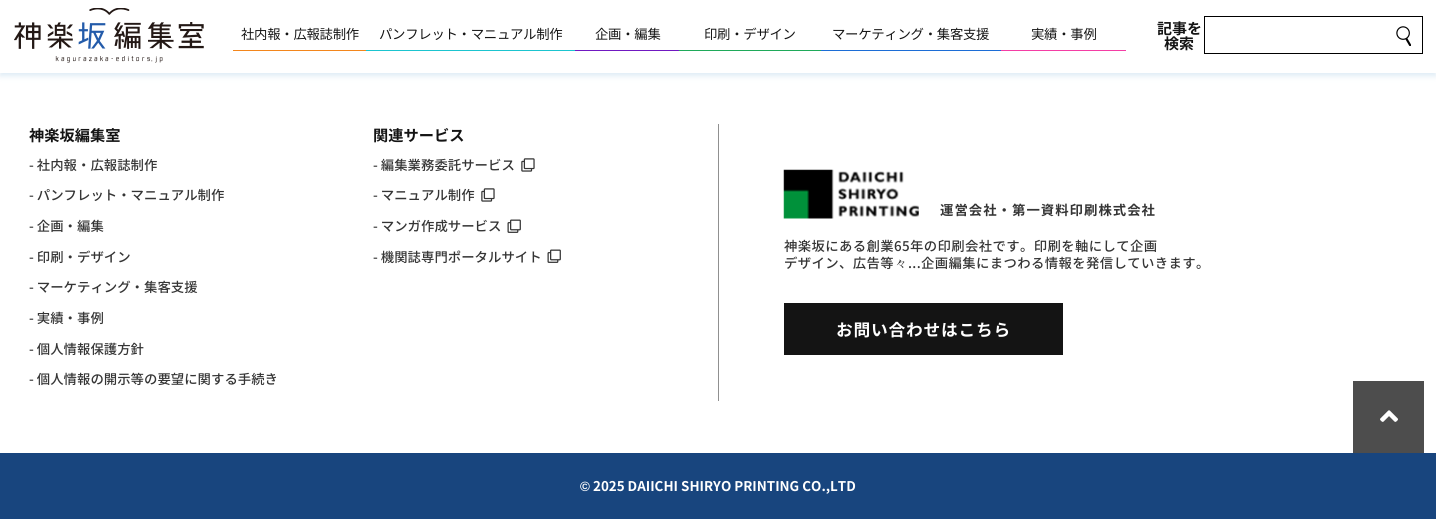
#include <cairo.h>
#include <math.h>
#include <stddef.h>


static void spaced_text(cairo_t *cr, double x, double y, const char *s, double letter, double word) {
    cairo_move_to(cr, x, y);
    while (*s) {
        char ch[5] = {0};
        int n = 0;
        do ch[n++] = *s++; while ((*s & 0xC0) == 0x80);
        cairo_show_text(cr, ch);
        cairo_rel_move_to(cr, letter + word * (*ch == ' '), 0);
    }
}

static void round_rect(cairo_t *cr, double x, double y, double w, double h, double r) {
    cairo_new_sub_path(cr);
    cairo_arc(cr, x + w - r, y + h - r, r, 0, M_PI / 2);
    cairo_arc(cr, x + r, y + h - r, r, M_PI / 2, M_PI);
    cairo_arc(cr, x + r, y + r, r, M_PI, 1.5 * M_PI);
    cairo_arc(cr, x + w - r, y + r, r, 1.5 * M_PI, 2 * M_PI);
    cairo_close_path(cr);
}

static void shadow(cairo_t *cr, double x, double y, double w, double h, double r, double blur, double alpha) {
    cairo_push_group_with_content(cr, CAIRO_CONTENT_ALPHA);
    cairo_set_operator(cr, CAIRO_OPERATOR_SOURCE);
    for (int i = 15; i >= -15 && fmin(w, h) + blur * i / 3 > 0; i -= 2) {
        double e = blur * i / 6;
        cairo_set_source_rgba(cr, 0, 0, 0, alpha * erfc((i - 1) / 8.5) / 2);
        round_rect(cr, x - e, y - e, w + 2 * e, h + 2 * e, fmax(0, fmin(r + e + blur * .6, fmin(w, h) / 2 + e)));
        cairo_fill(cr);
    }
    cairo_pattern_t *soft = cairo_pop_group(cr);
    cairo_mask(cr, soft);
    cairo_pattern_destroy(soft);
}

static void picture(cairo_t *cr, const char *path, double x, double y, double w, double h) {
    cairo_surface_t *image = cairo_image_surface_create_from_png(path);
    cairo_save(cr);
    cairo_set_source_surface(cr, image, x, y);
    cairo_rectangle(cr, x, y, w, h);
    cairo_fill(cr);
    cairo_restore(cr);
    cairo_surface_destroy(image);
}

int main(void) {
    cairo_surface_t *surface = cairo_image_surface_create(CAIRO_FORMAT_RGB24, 1436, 519);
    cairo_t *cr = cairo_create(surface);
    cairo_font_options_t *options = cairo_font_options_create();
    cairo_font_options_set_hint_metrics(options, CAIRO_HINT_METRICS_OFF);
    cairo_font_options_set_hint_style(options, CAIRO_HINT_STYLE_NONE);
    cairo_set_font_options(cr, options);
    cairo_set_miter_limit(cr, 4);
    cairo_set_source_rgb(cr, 1, 1, 1);
    cairo_paint(cr);
    cairo_set_source_rgb(cr, 0.353, 0.604, 0.796);
    shadow(cr, 0, 4, 1436, 72, 0, 3, 0.2);
    cairo_set_source_rgb(cr, 1, 1, 1);
    cairo_rectangle(cr, 0, 0, 1436, 73);
    cairo_fill(cr);
    picture(cr, "img1.png", 14, 8, 190, 55);
    cairo_set_source_rgb(cr, 0.953, 0.525, 0.11);
    cairo_rectangle(cr, 233, 50, 133, 1);
    cairo_fill(cr);
    cairo_select_font_face(cr, "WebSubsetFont", CAIRO_FONT_SLANT_NORMAL, CAIRO_FONT_WEIGHT_NORMAL);
    cairo_set_font_size(cr, 13.4);
    cairo_set_source_rgb(cr, 0.082, 0.082, 0.082);
    spaced_text(cr, 241, 39, "社内報・広報誌制作", -0.3, 0);
    cairo_set_source_rgb(cr, 0.106, 0.769, 0.812);
    cairo_rectangle(cr, 366, 50, 209, 1);
    cairo_fill(cr);
    cairo_set_source_rgb(cr, 0.082, 0.082, 0.082);
    spaced_text(cr, 379, 39, "パンフレット・マニュアル制作", -0.3, 0);
    cairo_set_source_rgb(cr, 0.439, 0.098, 0.757);
    cairo_rectangle(cr, 575, 50, 104, 1);
    cairo_fill(cr);
    cairo_set_source_rgb(cr, 0.082, 0.082, 0.082);
    spaced_text(cr, 595, 39, "企画・編集", -0.3, 0);
    cairo_set_source_rgb(cr, 0.122, 0.667, 0.353);
    cairo_rectangle(cr, 679, 50, 142, 1);
    cairo_fill(cr);
    cairo_set_source_rgb(cr, 0.082, 0.082, 0.082);
    spaced_text(cr, 704, 39, "印刷・デザイン", -0.3, 0);
    cairo_set_source_rgb(cr, 0.11, 0.427, 0.839);
    cairo_rectangle(cr, 821, 50, 180, 1);
    cairo_fill(cr);
    cairo_set_source_rgb(cr, 0.082, 0.082, 0.082);
    spaced_text(cr, 832, 39, "マーケティング・集客支援", -0.3, 0);
    cairo_set_source_rgb(cr, 0.957, 0.243, 0.647);
    cairo_rectangle(cr, 1001, 50, 125, 1);
    cairo_fill(cr);
    cairo_set_source_rgb(cr, 0.082, 0.082, 0.082);
    spaced_text(cr, 1031, 39, "実績・事例", -0.3, 0);
    cairo_select_font_face(cr, "WebSubsetFont", CAIRO_FONT_SLANT_NORMAL, CAIRO_FONT_WEIGHT_BOLD);
    cairo_set_font_size(cr, 15);
    cairo_move_to(cr, 1157, 34);
    cairo_show_text(cr, "記事を");
    cairo_move_to(cr, 1164, 49);
    cairo_show_text(cr, "検索");
    cairo_rectangle(cr, 1204.5, 16.5, 218, 37);
    cairo_set_source_rgb(cr, 0, 0, 0);
    cairo_set_line_width(cr, 1);
    cairo_stroke(cr);
    picture(cr, "img2.png", 1396, 26, 15, 20);
    cairo_set_source_rgb(cr, 0.565, 0.565, 0.565);
    cairo_rectangle(cr, 718, 124, 1, 277);
    cairo_fill(cr);
    cairo_set_font_size(cr, 15.25);
    cairo_set_source_rgb(cr, 0.082, 0.082, 0.082);
    cairo_move_to(cr, 29, 141);
    cairo_show_text(cr, "神楽坂編集室");
    cairo_select_font_face(cr, "WebSubsetFont Medium", CAIRO_FONT_SLANT_NORMAL, CAIRO_FONT_WEIGHT_NORMAL);
    cairo_set_font_size(cr, 13.4);
    cairo_set_source_rgb(cr, 0.208, 0.208, 0.208);
    cairo_move_to(cr, 29, 170);
    cairo_show_text(cr, "- 社内報・広報誌制作");
    cairo_move_to(cr, 29, 200);
    cairo_show_text(cr, "- パンフレット・マニュアル制作");
    cairo_move_to(cr, 29, 231);
    cairo_show_text(cr, "- 企画・編集");
    cairo_move_to(cr, 29, 262);
    cairo_show_text(cr, "- 印刷・デザイン");
    cairo_move_to(cr, 29, 292);
    cairo_show_text(cr, "- マーケティング・集客支援");
    cairo_move_to(cr, 29, 323);
    cairo_show_text(cr, "- 実績・事例");
    cairo_move_to(cr, 29, 354);
    cairo_show_text(cr, "- 個人情報保護方針");
    cairo_move_to(cr, 29, 384);
    cairo_show_text(cr, "- 個人情報の開示等の要望に関する手続き");
    cairo_select_font_face(cr, "WebSubsetFont", CAIRO_FONT_SLANT_NORMAL, CAIRO_FONT_WEIGHT_BOLD);
    cairo_set_font_size(cr, 15.25);
    cairo_set_source_rgb(cr, 0.082, 0.082, 0.082);
    cairo_move_to(cr, 373, 141);
    cairo_show_text(cr, "関連サービス");
    cairo_select_font_face(cr, "WebSubsetFont Medium", CAIRO_FONT_SLANT_NORMAL, CAIRO_FONT_WEIGHT_NORMAL);
    cairo_set_font_size(cr, 13.4);
    cairo_set_source_rgb(cr, 0.208, 0.208, 0.208);
    cairo_move_to(cr, 373, 170);
    cairo_show_text(cr, "- 編集業務委託サービス");
    picture(cr, "img3.png", 521, 158, 14, 14);
    cairo_move_to(cr, 373, 200);
    cairo_show_text(cr, "- マニュアル制作");
    picture(cr, "img3.png", 481, 188, 14, 14);
    cairo_move_to(cr, 373, 231);
    cairo_show_text(cr, "- マンガ作成サービス");
    picture(cr, "img4.png", 507, 219, 14, 14);
    cairo_move_to(cr, 373, 262);
    cairo_show_text(cr, "- 機関誌専門ポータルサイト");
    picture(cr, "img4.png", 547, 249, 14, 14);
    picture(cr, "img5.png", 783, 169, 136, 50);
    cairo_select_font_face(cr, "WebSubsetFont", CAIRO_FONT_SLANT_NORMAL, CAIRO_FONT_WEIGHT_BOLD);
    spaced_text(cr, 940, 215, "運営会社・第一資料印刷株式会社", 1, 0);
    cairo_select_font_face(cr, "WebSubsetFont Medium", CAIRO_FONT_SLANT_NORMAL, CAIRO_FONT_WEIGHT_NORMAL);
    spaced_text(cr, 784, 251, "神楽坂にある創業65年の印刷会社です。印刷を軸にして企画", 0.35, 0);
    spaced_text(cr, 784, 268, "デザイン、広告等", 0.35, 0);
    cairo_select_font_face(cr, "WenQuanYi Zen Hei Medium", CAIRO_FONT_SLANT_NORMAL, CAIRO_FONT_WEIGHT_NORMAL);
    spaced_text(cr, 894, 268, "々", 0.35, 0);
    cairo_select_font_face(cr, "WebSubsetFont Medium", CAIRO_FONT_SLANT_NORMAL, CAIRO_FONT_WEIGHT_NORMAL);
    spaced_text(cr, 908, 268, "...企画編集にまつわる情報を発信していきます。", 0.35, 0);
    cairo_set_source_rgb(cr, 0.082, 0.082, 0.082);
    cairo_rectangle(cr, 784, 303, 279, 52);
    cairo_fill(cr);
    cairo_select_font_face(cr, "WebSubsetFont", CAIRO_FONT_SLANT_NORMAL, CAIRO_FONT_WEIGHT_BOLD);
    cairo_set_font_size(cr, 16.75);
    cairo_set_source_rgb(cr, 1, 1, 1);
    spaced_text(cr, 836, 336, "お問い合わせはこちら", 0.75, 0);
    cairo_set_source_rgb(cr, 0.094, 0.271, 0.494);
    cairo_rectangle(cr, 0, 453, 1436, 66);
    cairo_fill(cr);
    cairo_select_font_face(cr, "Liberation Sans", CAIRO_FONT_SLANT_NORMAL, CAIRO_FONT_WEIGHT_BOLD);
    cairo_set_font_size(cr, 13.4);
    cairo_set_source_rgb(cr, 1, 1, 1);
    cairo_move_to(cr, 580, 491);
    cairo_show_text(cr, "©");
    cairo_select_font_face(cr, "WebSubsetFont", CAIRO_FONT_SLANT_NORMAL, CAIRO_FONT_WEIGHT_BOLD);
    cairo_move_to(cr, 593, 491);
    cairo_show_text(cr, "2025 DAIICHI SHIRYO PRINTING CO.,LTD");
    cairo_set_source_rgb(cr, 0.302, 0.302, 0.302);
    cairo_rectangle(cr, 1353, 381, 71, 72);
    cairo_fill(cr);
    picture(cr, "img6.png", 1380, 410, 18, 12);
    cairo_surface_write_to_png(surface, "page.png");
    cairo_font_options_destroy(options);
    cairo_destroy(cr);
    cairo_surface_destroy(surface);
    return 0;
}
